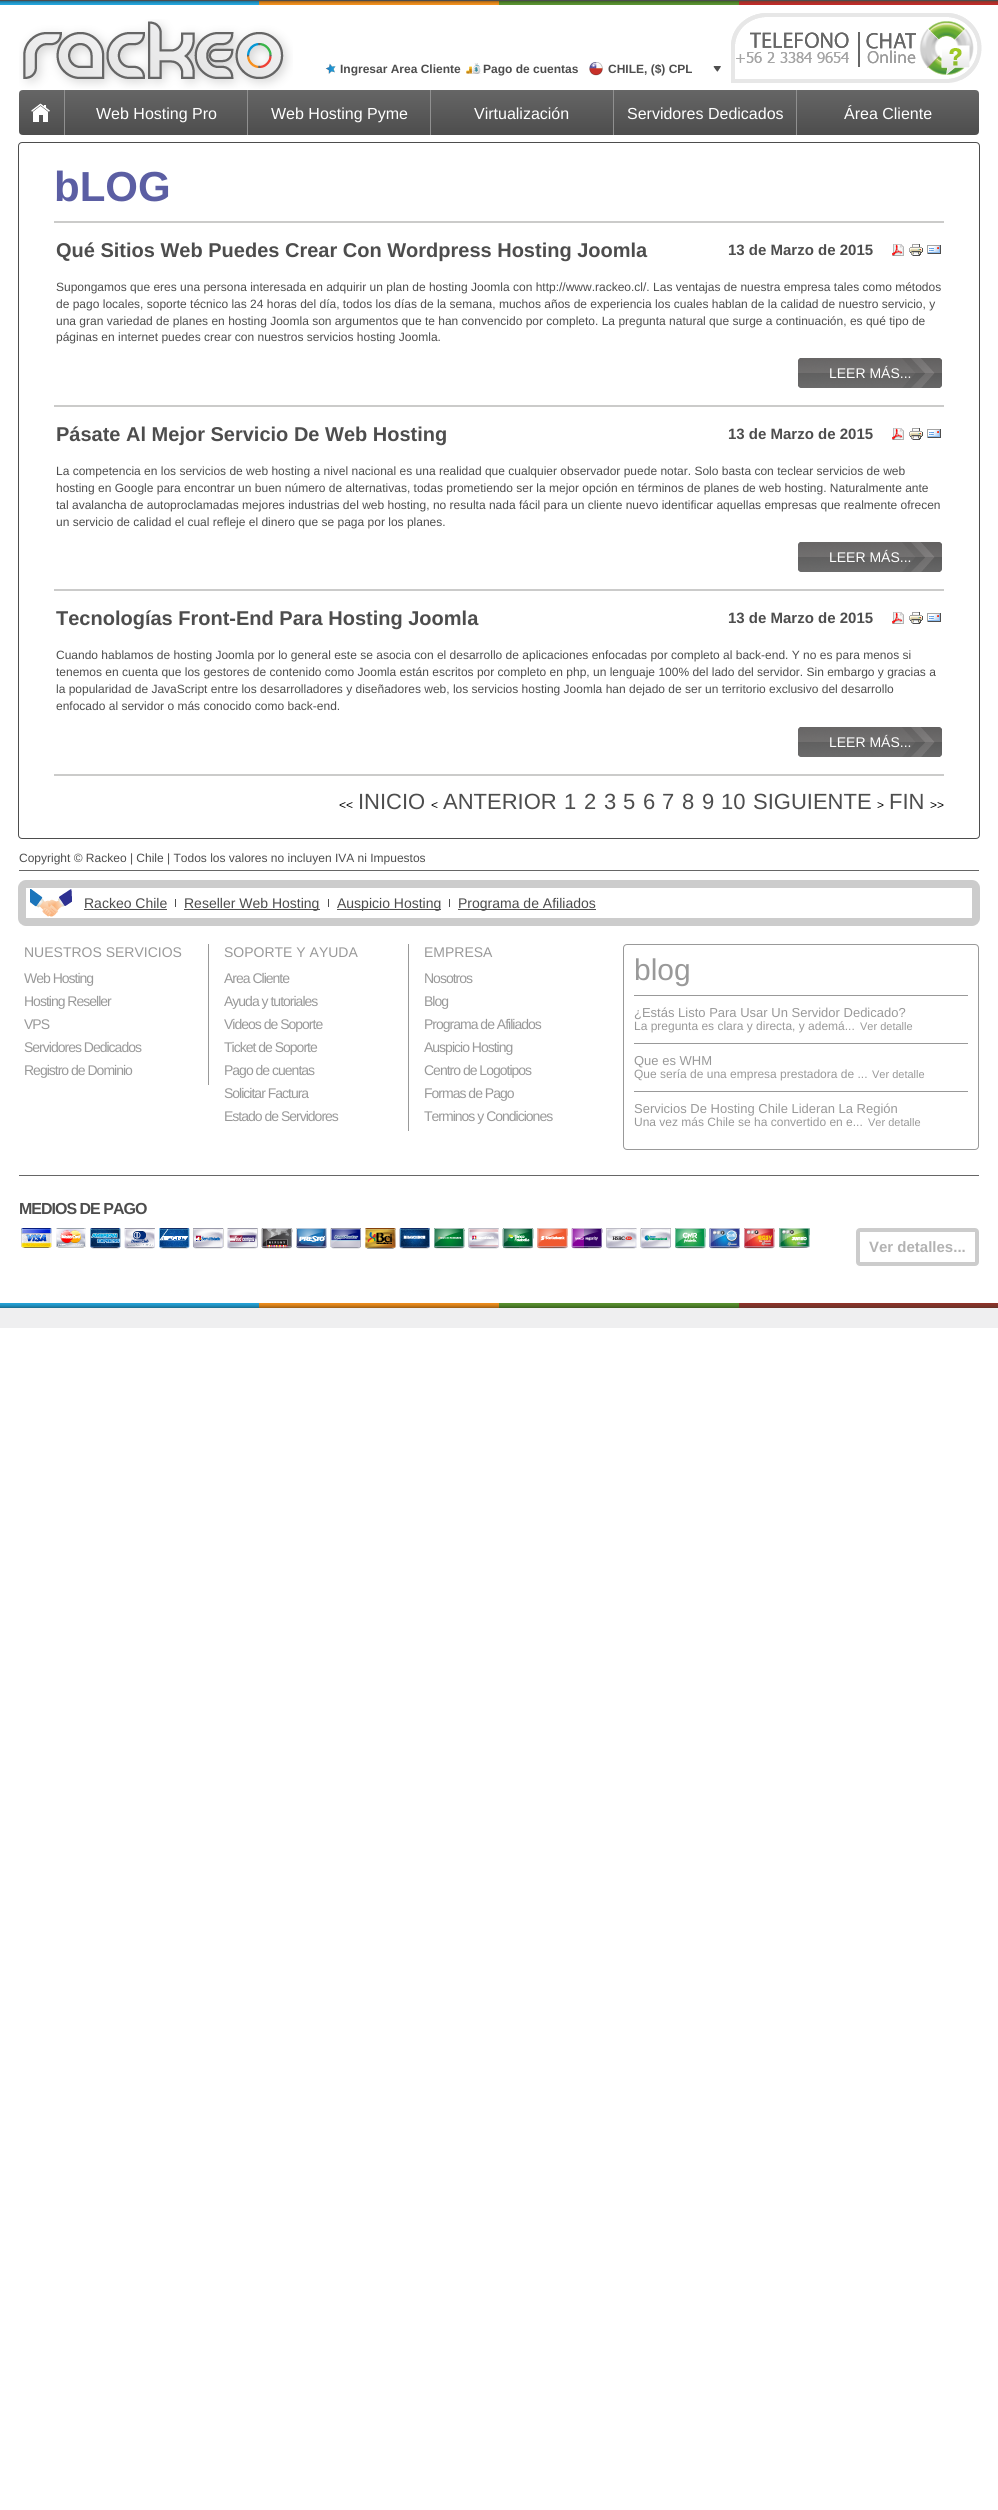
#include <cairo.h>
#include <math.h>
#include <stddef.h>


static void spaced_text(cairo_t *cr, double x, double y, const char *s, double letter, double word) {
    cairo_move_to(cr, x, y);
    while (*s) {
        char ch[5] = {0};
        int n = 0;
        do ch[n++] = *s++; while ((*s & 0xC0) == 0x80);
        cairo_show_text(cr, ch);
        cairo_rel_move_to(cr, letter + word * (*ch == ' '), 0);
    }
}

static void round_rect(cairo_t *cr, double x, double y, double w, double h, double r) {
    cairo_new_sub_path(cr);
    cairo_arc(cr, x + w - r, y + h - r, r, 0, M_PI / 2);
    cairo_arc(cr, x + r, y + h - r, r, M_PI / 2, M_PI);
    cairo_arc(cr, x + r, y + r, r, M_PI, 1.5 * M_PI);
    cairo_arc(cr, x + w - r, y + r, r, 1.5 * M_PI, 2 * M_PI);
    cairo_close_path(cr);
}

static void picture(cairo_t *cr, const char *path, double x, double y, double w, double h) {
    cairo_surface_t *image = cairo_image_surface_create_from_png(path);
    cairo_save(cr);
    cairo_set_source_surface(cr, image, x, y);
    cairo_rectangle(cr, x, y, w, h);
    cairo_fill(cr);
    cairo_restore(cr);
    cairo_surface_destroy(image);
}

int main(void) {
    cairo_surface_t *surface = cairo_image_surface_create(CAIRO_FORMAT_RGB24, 998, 2510);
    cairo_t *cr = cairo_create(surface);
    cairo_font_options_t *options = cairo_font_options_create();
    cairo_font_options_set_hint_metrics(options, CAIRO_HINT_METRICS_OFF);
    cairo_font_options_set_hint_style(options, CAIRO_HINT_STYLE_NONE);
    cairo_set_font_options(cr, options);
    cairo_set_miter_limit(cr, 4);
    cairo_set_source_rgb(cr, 1, 1, 1);
    cairo_paint(cr);
    picture(cr, "img1.png", 0, 0, 499, 5);
    picture(cr, "img2.png", 499, 0, 499, 5);
    picture(cr, "img3.png", 259, 1, 240, 4);
    picture(cr, "img4.png", 499, 1, 240, 4);
    picture(cr, "img5.png", 19, 19, 274, 70);
    picture(cr, "img6.png", 325, 63, 11, 11);
    cairo_select_font_face(cr, "Liberation Sans", CAIRO_FONT_SLANT_NORMAL, CAIRO_FONT_WEIGHT_BOLD);
    cairo_set_font_size(cr, 12);
    cairo_set_source_rgb(cr, 0.302, 0.302, 0.302);
    cairo_move_to(cr, 340, 73);
    cairo_show_text(cr, "Ingresar Area Cliente");
    picture(cr, "img7.png", 466, 63, 16, 11);
    cairo_move_to(cr, 483, 73);
    cairo_show_text(cr, "Pago de cuentas");
    picture(cr, "img8.png", 713, 66, 8, 6);
    picture(cr, "img9.png", 589, 62, 14, 14);
    cairo_move_to(cr, 608, 73);
    cairo_show_text(cr, "CHILE, ($) CPL");
    picture(cr, "img10.png", 731, 13, 248, 67);
    picture(cr, "img11.png", 731, 13, 251, 70);
    picture(cr, "img12.png", 19, 90, 960, 45);
    cairo_set_source_rgb(cr, 0.565, 0.565, 0.565);
    cairo_rectangle(cr, 64, 90, 1, 45);
    cairo_fill(cr);
    picture(cr, "img13.png", 31, 103, 19, 19);
    cairo_rectangle(cr, 247, 90, 1, 45);
    cairo_fill(cr);
    cairo_select_font_face(cr, "Liberation Sans", CAIRO_FONT_SLANT_NORMAL, CAIRO_FONT_WEIGHT_NORMAL);
    cairo_set_font_size(cr, 16);
    cairo_set_source_rgb(cr, 1, 1, 1);
    cairo_move_to(cr, 96, 119);
    cairo_show_text(cr, "Web Hosting Pro");
    cairo_set_source_rgb(cr, 0.565, 0.565, 0.565);
    cairo_rectangle(cr, 430, 90, 1, 45);
    cairo_fill(cr);
    cairo_set_source_rgb(cr, 1, 1, 1);
    cairo_move_to(cr, 271, 119);
    cairo_show_text(cr, "Web Hosting Pyme");
    cairo_set_source_rgb(cr, 0.565, 0.565, 0.565);
    cairo_rectangle(cr, 613, 90, 1, 45);
    cairo_fill(cr);
    cairo_set_source_rgb(cr, 1, 1, 1);
    cairo_move_to(cr, 474, 119);
    cairo_show_text(cr, "Virtualización");
    cairo_set_source_rgb(cr, 0.565, 0.565, 0.565);
    cairo_rectangle(cr, 796, 90, 1, 45);
    cairo_fill(cr);
    cairo_set_source_rgb(cr, 1, 1, 1);
    cairo_move_to(cr, 627, 119);
    cairo_show_text(cr, "Servidores Dedicados");
    cairo_move_to(cr, 844, 119);
    cairo_show_text(cr, "Área Cliente");
    round_rect(cr, 18.5, 142.5, 961, 696, 3.5);
    cairo_set_source_rgb(cr, 0.302, 0.302, 0.302);
    cairo_set_line_width(cr, 1);
    cairo_stroke(cr);
    cairo_set_source_rgb(cr, 0.796, 0.796, 0.792);
    cairo_rectangle(cr, 54, 221, 890, 2);
    cairo_fill(cr);
    cairo_select_font_face(cr, "Liberation Sans", CAIRO_FONT_SLANT_NORMAL, CAIRO_FONT_WEIGHT_BOLD);
    cairo_set_font_size(cr, 42);
    cairo_set_source_rgb(cr, 0.357, 0.369, 0.639);
    cairo_move_to(cr, 54, 201);
    cairo_show_text(cr, "bLOG");
    cairo_set_font_size(cr, 20);
    cairo_set_source_rgb(cr, 0.302, 0.302, 0.302);
    cairo_move_to(cr, 56, 257);
    cairo_show_text(cr, "Qué Sitios Web Puedes Crear Con Wordpress Hosting Joomla");
    cairo_set_font_size(cr, 15);
    cairo_move_to(cr, 728, 255);
    cairo_show_text(cr, "13 de Marzo de 2015");
    picture(cr, "img14.png", 892, 244, 12, 12);
    picture(cr, "img15.png", 909, 244, 14, 12);
    picture(cr, "img16.png", 927, 245, 14, 9);
    cairo_select_font_face(cr, "Liberation Sans", CAIRO_FONT_SLANT_NORMAL, CAIRO_FONT_WEIGHT_NORMAL);
    cairo_set_font_size(cr, 12);
    cairo_move_to(cr, 56, 291);
    cairo_show_text(cr, "Supongamos que eres una persona interesada en adquirir un plan de hosting Joomla con http://www.rackeo.cl/. Las ventajas de nuestra empresa tales como métodos");
    cairo_move_to(cr, 56, 308);
    cairo_show_text(cr, "de pago locales, soporte técnico las 24 horas del día, todos los días de la semana, muchos años de experiencia los cuales hablan de la calidad de nuestro servicio, y");
    cairo_move_to(cr, 56, 325);
    cairo_show_text(cr, "una gran variedad de planes en hosting Joomla son argumentos que te han convencido por completo. La pregunta natural que surge a continuación, es qué tipo de");
    cairo_move_to(cr, 56, 341);
    cairo_show_text(cr, "páginas en internet puedes crear con nuestros servicios hosting Joomla.");
    picture(cr, "img17.png", 798, 358, 144, 30);
    cairo_set_font_size(cr, 14);
    cairo_set_source_rgb(cr, 1, 1, 1);
    cairo_move_to(cr, 829, 378);
    cairo_show_text(cr, "LEER MÁS...");
    cairo_set_source_rgb(cr, 0.796, 0.796, 0.792);
    cairo_rectangle(cr, 54, 405, 890, 2);
    cairo_fill(cr);
    cairo_select_font_face(cr, "Liberation Sans", CAIRO_FONT_SLANT_NORMAL, CAIRO_FONT_WEIGHT_BOLD);
    cairo_set_font_size(cr, 20);
    cairo_set_source_rgb(cr, 0.302, 0.302, 0.302);
    cairo_move_to(cr, 56, 441);
    cairo_show_text(cr, "Pásate Al Mejor Servicio De Web Hosting");
    cairo_set_font_size(cr, 15);
    cairo_move_to(cr, 728, 439);
    cairo_show_text(cr, "13 de Marzo de 2015");
    picture(cr, "img14.png", 892, 428, 12, 12);
    picture(cr, "img15.png", 909, 428, 14, 12);
    picture(cr, "img16.png", 927, 429, 14, 9);
    cairo_select_font_face(cr, "Liberation Sans", CAIRO_FONT_SLANT_NORMAL, CAIRO_FONT_WEIGHT_NORMAL);
    cairo_set_font_size(cr, 12);
    cairo_move_to(cr, 56, 475);
    cairo_show_text(cr, "La competencia en los servicios de web hosting a nivel nacional es una realidad que cualquier observador puede notar. Solo basta con teclear servicios de web");
    cairo_move_to(cr, 56, 492);
    cairo_show_text(cr, "hosting en Google para encontrar un buen número de alternativas, todas prometiendo ser la mejor opción en términos de planes de web hosting. Naturalmente ante");
    cairo_move_to(cr, 56, 509);
    cairo_show_text(cr, "tal avalancha de autoproclamadas mejores industrias del web hosting, no resulta nada fácil para un cliente nuevo identificar aquellas empresas que realmente ofrecen");
    cairo_move_to(cr, 56, 526);
    cairo_show_text(cr, "un servicio de calidad el cual refleje el dinero que se paga por los planes.");
    picture(cr, "img17.png", 798, 542, 144, 30);
    cairo_set_font_size(cr, 14);
    cairo_set_source_rgb(cr, 1, 1, 1);
    cairo_move_to(cr, 829, 562);
    cairo_show_text(cr, "LEER MÁS...");
    cairo_set_source_rgb(cr, 0.796, 0.796, 0.792);
    cairo_rectangle(cr, 54, 589, 890, 2);
    cairo_fill(cr);
    cairo_select_font_face(cr, "Liberation Sans", CAIRO_FONT_SLANT_NORMAL, CAIRO_FONT_WEIGHT_BOLD);
    cairo_set_font_size(cr, 20);
    cairo_set_source_rgb(cr, 0.302, 0.302, 0.302);
    cairo_move_to(cr, 56, 625);
    cairo_show_text(cr, "Tecnologías Front-End Para Hosting Joomla");
    cairo_set_font_size(cr, 15);
    cairo_move_to(cr, 728, 623);
    cairo_show_text(cr, "13 de Marzo de 2015");
    picture(cr, "img14.png", 892, 612, 12, 12);
    picture(cr, "img15.png", 909, 612, 14, 12);
    picture(cr, "img16.png", 927, 613, 14, 9);
    cairo_select_font_face(cr, "Liberation Sans", CAIRO_FONT_SLANT_NORMAL, CAIRO_FONT_WEIGHT_NORMAL);
    cairo_set_font_size(cr, 12);
    cairo_move_to(cr, 56, 659);
    cairo_show_text(cr, "Cuando hablamos de hosting Joomla por lo general este se asocia con el desarrollo de aplicaciones enfocadas por completo al back-end. Y no es para menos si");
    cairo_move_to(cr, 56, 676);
    cairo_show_text(cr, "tenemos en cuenta que los gestores de contenido como Joomla están escritos por completo en php, un lenguaje 100% del lado del servidor. Sin embargo y gracias a");
    cairo_move_to(cr, 56, 693);
    cairo_show_text(cr, "la popularidad de JavaScript entre los desarrolladores y diseñadores web, los servicios hosting Joomla han dejado de ser un territorio exclusivo del desarrollo");
    cairo_move_to(cr, 56, 710);
    cairo_show_text(cr, "enfocado al servidor o más conocido como back-end.");
    picture(cr, "img17.png", 798, 727, 144, 30);
    cairo_set_font_size(cr, 14);
    cairo_set_source_rgb(cr, 1, 1, 1);
    cairo_move_to(cr, 829, 747);
    cairo_show_text(cr, "LEER MÁS...");
    cairo_set_source_rgb(cr, 0.796, 0.796, 0.792);
    cairo_rectangle(cr, 54, 774, 890, 2);
    cairo_fill(cr);
    cairo_set_font_size(cr, 12);
    cairo_set_source_rgb(cr, 0, 0, 0);
    cairo_move_to(cr, 339, 809);
    cairo_show_text(cr, "<<");
    cairo_set_font_size(cr, 22);
    cairo_set_source_rgb(cr, 0.302, 0.302, 0.302);
    cairo_move_to(cr, 358, 809);
    cairo_show_text(cr, "INICIO");
    cairo_set_font_size(cr, 12);
    cairo_set_source_rgb(cr, 0, 0, 0);
    cairo_move_to(cr, 431, 809);
    cairo_show_text(cr, "<");
    cairo_set_font_size(cr, 22);
    cairo_set_source_rgb(cr, 0.302, 0.302, 0.302);
    cairo_move_to(cr, 443, 809);
    cairo_show_text(cr, "ANTERIOR");
    cairo_move_to(cr, 564, 809);
    cairo_show_text(cr, "1");
    cairo_move_to(cr, 584, 809);
    cairo_show_text(cr, "2");
    cairo_move_to(cr, 604, 809);
    cairo_show_text(cr, "3");
    cairo_move_to(cr, 623, 809);
    cairo_show_text(cr, "5");
    cairo_move_to(cr, 643, 809);
    cairo_show_text(cr, "6");
    cairo_move_to(cr, 662, 809);
    cairo_show_text(cr, "7");
    cairo_move_to(cr, 682, 809);
    cairo_show_text(cr, "8");
    cairo_move_to(cr, 702, 809);
    cairo_show_text(cr, "9");
    cairo_move_to(cr, 721, 809);
    cairo_show_text(cr, "10");
    cairo_move_to(cr, 753, 809);
    cairo_show_text(cr, "SIGUIENTE");
    cairo_set_font_size(cr, 12);
    cairo_set_source_rgb(cr, 0, 0, 0);
    cairo_move_to(cr, 877, 809);
    cairo_show_text(cr, ">");
    cairo_set_font_size(cr, 22);
    cairo_set_source_rgb(cr, 0.302, 0.302, 0.302);
    cairo_move_to(cr, 889, 809);
    cairo_show_text(cr, "FIN");
    cairo_set_font_size(cr, 12);
    cairo_set_source_rgb(cr, 0, 0, 0);
    cairo_move_to(cr, 930, 809);
    cairo_show_text(cr, ">>");
    cairo_set_source_rgb(cr, 0.4, 0.4, 0.4);
    cairo_rectangle(cr, 19, 870, 960, 1);
    cairo_fill(cr);
    cairo_set_source_rgb(cr, 0.302, 0.302, 0.302);
    cairo_move_to(cr, 19, 862);
    cairo_show_text(cr, "Copyright © Rackeo | Chile | Todos los valores no incluyen IVA ni Impuestos");
    picture(cr, "img18.png", 30, 889, 42, 28);
    round_rect(cr, 22, 884, 954, 38, 4);
    cairo_set_source_rgb(cr, 0.8, 0.8, 0.8);
    cairo_set_line_width(cr, 8);
    cairo_stroke(cr);
    cairo_set_source_rgb(cr, 0.302, 0.302, 0.302);
    cairo_rectangle(cr, 175, 899, 1, 8);
    cairo_fill(cr);
    cairo_set_font_size(cr, 14);
    cairo_move_to(cr, 84, 908);
    cairo_show_text(cr, "Rackeo Chile");
    cairo_rectangle(cr, 84, 909, 83, 1);
    cairo_fill(cr);
    cairo_rectangle(cr, 328, 899, 1, 8);
    cairo_fill(cr);
    cairo_rectangle(cr, 184, 909, 136, 1);
    cairo_fill(cr);
    cairo_move_to(cr, 184, 908);
    cairo_show_text(cr, "Reseller Web Hosting");
    cairo_rectangle(cr, 449, 899, 1, 8);
    cairo_fill(cr);
    cairo_rectangle(cr, 337, 909, 104, 1);
    cairo_fill(cr);
    cairo_move_to(cr, 337, 908);
    cairo_show_text(cr, "Auspicio Hosting");
    cairo_rectangle(cr, 458, 909, 138, 1);
    cairo_fill(cr);
    cairo_move_to(cr, 458, 908);
    cairo_show_text(cr, "Programa de Afiliados");
    cairo_set_source_rgb(cr, 0.4, 0.4, 0.4);
    cairo_rectangle(cr, 19, 1175, 960, 1);
    cairo_fill(cr);
    cairo_set_source_rgb(cr, 0.6, 0.6, 0.6);
    cairo_rectangle(cr, 208, 944, 1, 141);
    cairo_fill(cr);
    cairo_move_to(cr, 24, 957);
    cairo_show_text(cr, "NUESTROS SERVICIOS");
    spaced_text(cr, 24, 983, "Web Hosting", -1, 0);
    spaced_text(cr, 24, 1006, "Hosting Reseller", -1, 0);
    spaced_text(cr, 24, 1029, "VPS", -1, 0);
    spaced_text(cr, 24, 1052, "Servidores Dedicados", -1, 0);
    spaced_text(cr, 24, 1075, "Registro de Dominio", -1, 0);
    cairo_rectangle(cr, 408, 944, 1, 187);
    cairo_fill(cr);
    cairo_move_to(cr, 224, 957);
    cairo_show_text(cr, "SOPORTE Y AYUDA");
    spaced_text(cr, 224, 983, "Area Cliente", -1, 0);
    spaced_text(cr, 224, 1006, "Ayuda y tutoriales", -1, 0);
    spaced_text(cr, 224, 1029, "Videos de Soporte", -1, 0);
    spaced_text(cr, 224, 1052, "Ticket de Soporte", -1, 0);
    spaced_text(cr, 224, 1075, "Pago de cuentas", -1, 0);
    spaced_text(cr, 224, 1098, "Solicitar Factura", -1, 0);
    spaced_text(cr, 224, 1121, "Estado de Servidores", -1, 0);
    cairo_move_to(cr, 424, 957);
    cairo_show_text(cr, "EMPRESA");
    spaced_text(cr, 424, 983, "Nosotros", -1, 0);
    spaced_text(cr, 424, 1006, "Blog", -1, 0);
    spaced_text(cr, 424, 1029, "Programa de Afiliados", -1, 0);
    spaced_text(cr, 424, 1052, "Auspicio Hosting", -1, 0);
    spaced_text(cr, 424, 1075, "Centro de Logotipos", -1, 0);
    spaced_text(cr, 424, 1098, "Formas de Pago", -1, 0);
    spaced_text(cr, 424, 1121, "Terminos y Condiciones", -1, 0);
    round_rect(cr, 623.5, 944.5, 355, 205, 3.5);
    cairo_set_line_width(cr, 1);
    cairo_stroke(cr);
    cairo_set_font_size(cr, 30);
    cairo_move_to(cr, 634, 980);
    cairo_show_text(cr, "blog");
    cairo_rectangle(cr, 634, 995, 334, 1);
    cairo_fill(cr);
    cairo_set_font_size(cr, 13);
    cairo_move_to(cr, 634, 1017);
    cairo_show_text(cr, "¿Estás Listo Para Usar Un Servidor Dedicado?");
    cairo_set_font_size(cr, 12);
    cairo_move_to(cr, 634, 1030);
    cairo_show_text(cr, "La pregunta es clara y directa, y ademá...");
    cairo_set_font_size(cr, 11);
    cairo_move_to(cr, 860, 1030);
    cairo_show_text(cr, "Ver detalle");
    cairo_rectangle(cr, 634, 1043, 334, 1);
    cairo_fill(cr);
    cairo_set_font_size(cr, 13);
    cairo_move_to(cr, 634, 1065);
    cairo_show_text(cr, "Que es WHM");
    cairo_set_font_size(cr, 12);
    cairo_move_to(cr, 634, 1078);
    cairo_show_text(cr, "Que sería de una empresa prestadora de ...");
    cairo_set_font_size(cr, 11);
    cairo_move_to(cr, 872, 1078);
    cairo_show_text(cr, "Ver detalle");
    cairo_rectangle(cr, 634, 1091, 334, 1);
    cairo_fill(cr);
    cairo_set_font_size(cr, 13);
    cairo_move_to(cr, 634, 1113);
    cairo_show_text(cr, "Servicios De Hosting Chile Lideran La Región");
    cairo_set_font_size(cr, 12);
    cairo_move_to(cr, 634, 1126);
    cairo_show_text(cr, "Una vez más Chile se ha convertido en e...");
    cairo_set_font_size(cr, 11);
    cairo_move_to(cr, 868, 1126);
    cairo_show_text(cr, "Ver detalle");
    cairo_select_font_face(cr, "Liberation Sans", CAIRO_FONT_SLANT_NORMAL, CAIRO_FONT_WEIGHT_BOLD);
    cairo_set_font_size(cr, 16);
    cairo_set_source_rgb(cr, 0.302, 0.302, 0.302);
    spaced_text(cr, 19, 1214, "MEDIOS DE PAGO", -1, 0);
    picture(cr, "img19.png", 21, 1228, 789, 21);
    round_rect(cr, 858, 1230, 119, 34, 2);
    cairo_set_source_rgb(cr, 0.8, 0.8, 0.8);
    cairo_set_line_width(cr, 4);
    cairo_stroke(cr);
    cairo_set_font_size(cr, 15);
    cairo_set_source_rgb(cr, 0.702, 0.702, 0.702);
    cairo_move_to(cr, 869, 1252);
    cairo_show_text(cr, "Ver detalles...");
    picture(cr, "img20.png", 0, 1303, 259, 5);
    picture(cr, "img21.png", 739, 1303, 259, 5);
    picture(cr, "img22.png", 259, 1303, 240, 5);
    picture(cr, "img23.png", 499, 1303, 240, 5);
    cairo_set_source_rgb(cr, 0.937, 0.937, 0.941);
    cairo_rectangle(cr, 0, 1308, 998, 20);
    cairo_fill(cr);
    cairo_surface_write_to_png(surface, "page.png");
    cairo_font_options_destroy(options);
    cairo_destroy(cr);
    cairo_surface_destroy(surface);
    return 0;
}
